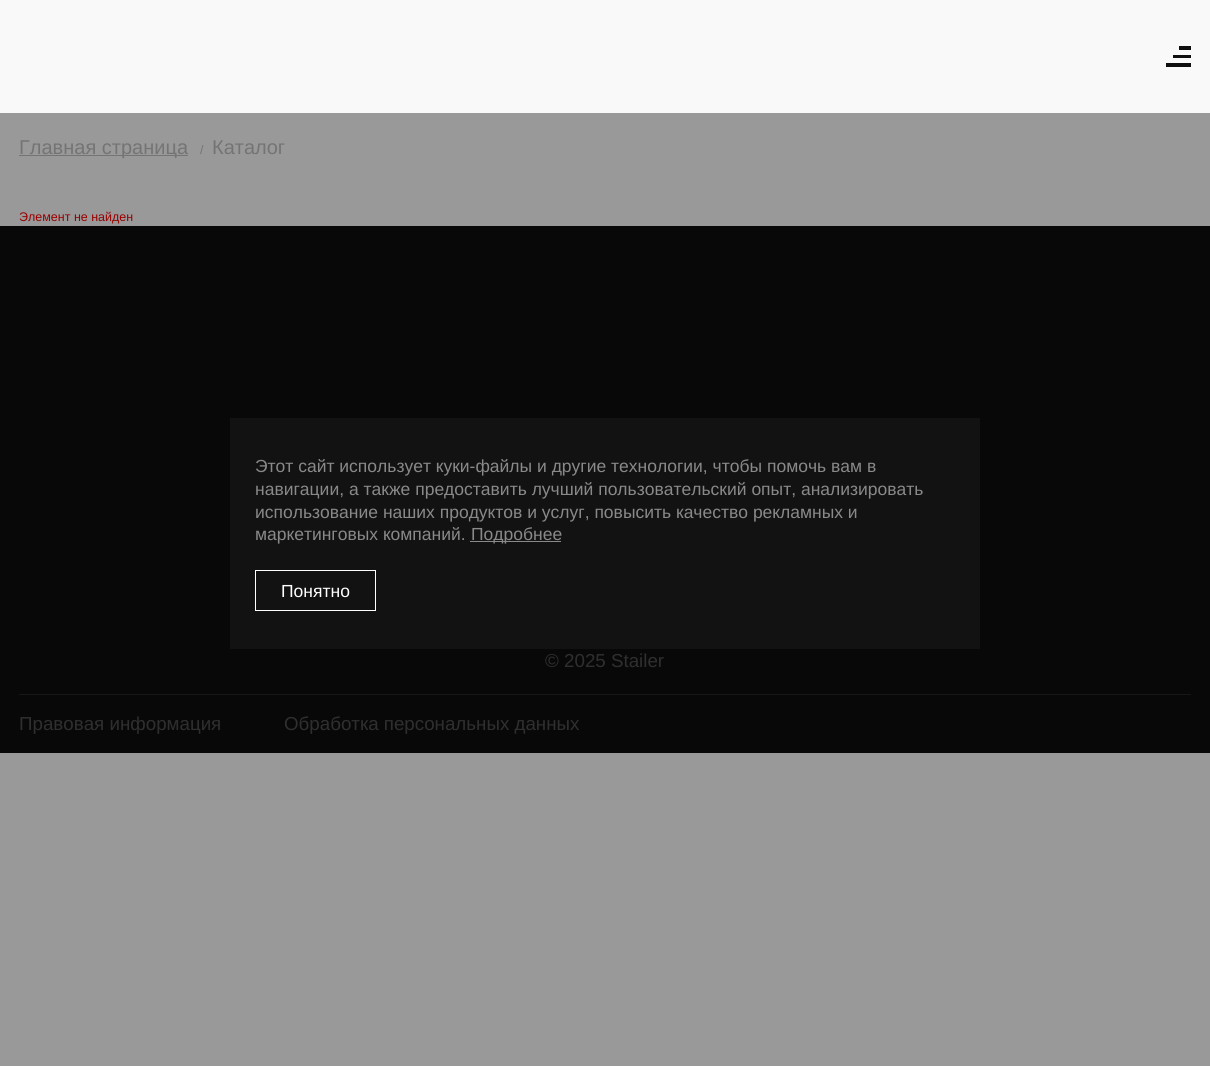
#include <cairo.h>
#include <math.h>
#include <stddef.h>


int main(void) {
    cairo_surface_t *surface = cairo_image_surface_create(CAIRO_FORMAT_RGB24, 1210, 1066);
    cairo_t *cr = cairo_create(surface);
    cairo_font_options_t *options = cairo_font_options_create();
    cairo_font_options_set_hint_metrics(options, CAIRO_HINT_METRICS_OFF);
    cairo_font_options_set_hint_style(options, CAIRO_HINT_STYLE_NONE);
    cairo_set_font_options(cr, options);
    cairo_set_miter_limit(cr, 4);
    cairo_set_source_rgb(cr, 0.6, 0.6, 0.6);
    cairo_paint(cr);
    cairo_set_source_rgb(cr, 0.973, 0.973, 0.973);
    cairo_rectangle(cr, 0, 0, 1210, 113);
    cairo_fill(cr);
    cairo_set_source_rgb(cr, 0.059, 0.059, 0.059);
    cairo_rectangle(cr, 1179, 46, 12, 4);
    cairo_fill(cr);
    cairo_rectangle(cr, 1173, 55, 18, 3);
    cairo_fill(cr);
    cairo_rectangle(cr, 1166, 63, 25, 4);
    cairo_fill(cr);
    cairo_set_source_rgb(cr, 0.455, 0.455, 0.455);
    cairo_rectangle(cr, 19, 155, 169, 1);
    cairo_fill(cr);
    cairo_select_font_face(cr, "Liberation Sans", CAIRO_FONT_SLANT_NORMAL, CAIRO_FONT_WEIGHT_NORMAL);
    cairo_set_font_size(cr, 20);
    cairo_move_to(cr, 19, 154);
    cairo_show_text(cr, "Главная страница");
    cairo_set_font_size(cr, 12.5);
    cairo_move_to(cr, 200, 154);
    cairo_show_text(cr, "/");
    cairo_set_font_size(cr, 20);
    cairo_move_to(cr, 212, 154);
    cairo_show_text(cr, "Каталог");
    cairo_set_font_size(cr, 12.5);
    cairo_set_source_rgb(cr, 0.6, 0, 0);
    cairo_move_to(cr, 19, 221);
    cairo_show_text(cr, "Элемент не найден");
    cairo_set_source_rgb(cr, 0.035, 0.035, 0.035);
    cairo_rectangle(cr, 0, 226, 1210, 527);
    cairo_fill(cr);
    cairo_set_source_rgb(cr, 0.071, 0.071, 0.071);
    cairo_rectangle(cr, 230, 418, 750, 231);
    cairo_fill(cr);
    cairo_set_font_size(cr, 17.5);
    cairo_set_source_rgb(cr, 0.537, 0.537, 0.537);
    cairo_move_to(cr, 255, 472);
    cairo_show_text(cr, "Этот сайт использует куки-файлы и другие технологии, чтобы помочь вам в");
    cairo_move_to(cr, 255, 495);
    cairo_show_text(cr, "навигации, а также предоставить лучший пользовательский опыт, анализировать");
    cairo_move_to(cr, 255, 518);
    cairo_show_text(cr, "использование наших продуктов и услуг, повысить качество рекламных и");
    cairo_move_to(cr, 255, 540);
    cairo_show_text(cr, "маркетинговых компаний.");
    cairo_rectangle(cr, 470, 541, 91, 1);
    cairo_fill(cr);
    cairo_move_to(cr, 471, 540);
    cairo_show_text(cr, "Подробнее");
    cairo_rectangle(cr, 255.5, 570.5, 120, 40);
    cairo_set_source_rgb(cr, 1, 1, 1);
    cairo_set_line_width(cr, 1);
    cairo_stroke(cr);
    cairo_move_to(cr, 281, 597);
    cairo_show_text(cr, "Понятно");
    cairo_set_font_size(cr, 18.75);
    cairo_set_source_rgb(cr, 0.184, 0.184, 0.184);
    cairo_move_to(cr, 545, 667);
    cairo_show_text(cr, "© 2025 Stailer");
    cairo_set_source_rgb(cr, 0.09, 0.09, 0.09);
    cairo_rectangle(cr, 19, 694, 1172, 1);
    cairo_fill(cr);
    cairo_set_source_rgb(cr, 0.184, 0.184, 0.184);
    cairo_move_to(cr, 19, 730);
    cairo_show_text(cr, "Правовая информация");
    cairo_move_to(cr, 284, 730);
    cairo_show_text(cr, "Обработка персональных данных");
    cairo_surface_write_to_png(surface, "page.png");
    cairo_font_options_destroy(options);
    cairo_destroy(cr);
    cairo_surface_destroy(surface);
    return 0;
}
